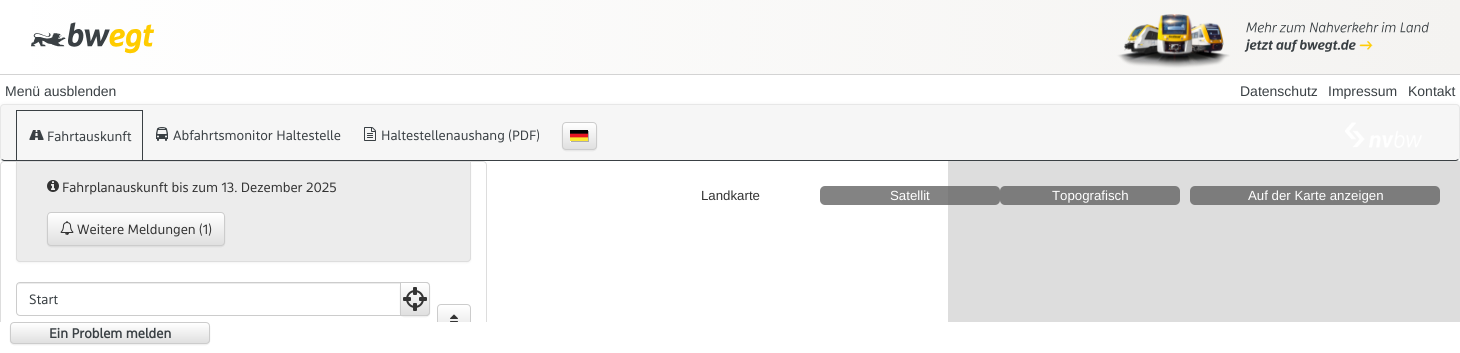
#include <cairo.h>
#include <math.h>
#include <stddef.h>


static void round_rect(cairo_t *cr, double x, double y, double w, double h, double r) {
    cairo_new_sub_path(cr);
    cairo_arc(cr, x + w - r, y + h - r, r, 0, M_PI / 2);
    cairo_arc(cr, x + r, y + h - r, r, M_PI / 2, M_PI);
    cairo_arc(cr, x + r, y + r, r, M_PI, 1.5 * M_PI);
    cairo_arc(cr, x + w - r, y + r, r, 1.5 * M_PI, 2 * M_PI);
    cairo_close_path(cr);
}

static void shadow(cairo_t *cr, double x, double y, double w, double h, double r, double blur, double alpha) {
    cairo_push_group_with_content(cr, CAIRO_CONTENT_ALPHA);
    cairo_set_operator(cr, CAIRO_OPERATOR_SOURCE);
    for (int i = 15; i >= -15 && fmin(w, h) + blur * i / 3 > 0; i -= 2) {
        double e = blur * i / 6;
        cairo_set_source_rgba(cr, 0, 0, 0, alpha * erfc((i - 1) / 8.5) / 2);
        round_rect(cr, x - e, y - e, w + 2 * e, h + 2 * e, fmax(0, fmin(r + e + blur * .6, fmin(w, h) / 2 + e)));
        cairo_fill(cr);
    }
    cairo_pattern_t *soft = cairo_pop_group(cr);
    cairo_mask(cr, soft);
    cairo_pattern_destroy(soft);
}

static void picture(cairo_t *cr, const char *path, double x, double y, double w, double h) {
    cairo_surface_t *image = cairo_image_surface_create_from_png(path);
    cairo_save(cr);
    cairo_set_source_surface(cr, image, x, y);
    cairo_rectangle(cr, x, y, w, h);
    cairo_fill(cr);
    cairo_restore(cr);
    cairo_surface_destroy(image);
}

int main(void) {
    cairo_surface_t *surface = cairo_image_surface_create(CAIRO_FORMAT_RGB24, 1460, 353);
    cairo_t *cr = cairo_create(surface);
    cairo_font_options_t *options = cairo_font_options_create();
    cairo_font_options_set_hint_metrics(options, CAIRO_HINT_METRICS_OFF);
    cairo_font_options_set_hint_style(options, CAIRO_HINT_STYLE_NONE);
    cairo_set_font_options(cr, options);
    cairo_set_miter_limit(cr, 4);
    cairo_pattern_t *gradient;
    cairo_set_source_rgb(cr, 1, 1, 1);
    cairo_paint(cr);
    picture(cr, "img1.png", 31, 0, 1429, 74);
    cairo_set_source_rgb(cr, 0.827, 0.827, 0.827);
    cairo_rectangle(cr, 0, 74, 1460, 1);
    cairo_fill(cr);
    cairo_select_font_face(cr, "Liberation Sans", CAIRO_FONT_SLANT_NORMAL, CAIRO_FONT_WEIGHT_NORMAL);
    cairo_set_font_size(cr, 14);
    cairo_set_source_rgb(cr, 0.227, 0.251, 0.267);
    cairo_move_to(cr, 5, 96);
    cairo_show_text(cr, "Menü ausblenden");
    cairo_move_to(cr, 1240, 96);
    cairo_show_text(cr, "Datenschutz");
    cairo_move_to(cr, 1328, 96);
    cairo_show_text(cr, "Impressum");
    cairo_move_to(cr, 1408, 96);
    cairo_show_text(cr, "Kontakt");
    cairo_set_source_rgb(cr, 0, 0, 0);
    shadow(cr, 0, 105, 1460, 57, 4, 2.5, 0.07);
    cairo_set_source_rgb(cr, 0.961, 0.961, 0.961);
    round_rect(cr, 0, 104, 1460, 57, 4);
    cairo_fill(cr);
    cairo_new_path(cr);
    cairo_move_to(cr, 1458.5, 159.5);
    cairo_line_to(cr, 1456, 160.5);
    cairo_line_to(cr, 4, 160.5);
    cairo_line_to(cr, 1.5, 159.5);
    cairo_set_source_rgb(cr, 0.227, 0.251, 0.267);
    cairo_set_line_width(cr, 1);
    cairo_stroke(cr);
    cairo_new_path(cr);
    cairo_move_to(cr, 1.5, 159.5);
    cairo_line_to(cr, 0.5, 157.5);
    cairo_line_to(cr, 0.5, 107.5);
    cairo_curve_to(cr, 1, 105.5, 2.5, 104.5, 4, 104.5);
    cairo_line_to(cr, 1456, 104.5);
    cairo_curve_to(cr, 1457.5, 104.5, 1459, 105.5, 1459.5, 107.5);
    cairo_line_to(cr, 1459.5, 157.5);
    cairo_line_to(cr, 1458.5, 159.5);
    cairo_set_source_rgb(cr, 0.906, 0.906, 0.906);
    cairo_stroke(cr);
    cairo_set_source_rgb(cr, 0.227, 0.251, 0.267);
    cairo_rectangle(cr, 16, 110, 127, 1);
    cairo_fill(cr);
    cairo_rectangle(cr, 142, 110, 1, 51);
    cairo_fill(cr);
    cairo_rectangle(cr, 16, 110, 1, 51);
    cairo_fill(cr);
    picture(cr, "img2.png", 29, 130, 15, 10);
    cairo_select_font_face(cr, "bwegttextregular", CAIRO_FONT_SLANT_NORMAL, CAIRO_FONT_WEIGHT_NORMAL);
    cairo_move_to(cr, 47, 141);
    cairo_show_text(cr, "Fahrtauskunft");
    picture(cr, "img3.png", 156, 127, 12, 14);
    cairo_move_to(cr, 173, 140);
    cairo_show_text(cr, "Abfahrtsmonitor Haltestelle");
    picture(cr, "img4.png", 364, 127, 12, 14);
    cairo_move_to(cr, 381, 140);
    cairo_show_text(cr, "Haltestellenaushang (PDF)");
    cairo_set_source_rgb(cr, 0, 0, 0);
    shadow(cr, 562, 123, 35, 28, 4, 0.5, 0.07);
    cairo_save(cr);
    round_rect(cr, 562, 122, 35, 28, 4);
    cairo_clip(cr);
    gradient = cairo_pattern_create_linear(580, 123, 580, 149);
    cairo_pattern_add_color_stop_rgba(gradient, 0, 1, 1, 1, 1);
    cairo_pattern_add_color_stop_rgba(gradient, 1, 0.878, 0.878, 0.878, 1);
    cairo_set_source(cr, gradient);
    cairo_pattern_destroy(gradient);
    cairo_rectangle(cr, 562, 123, 35, 26);
    cairo_fill(cr);
    cairo_restore(cr);
    round_rect(cr, 562.5, 122.5, 34, 27, 3.5);
    cairo_set_source_rgb(cr, 0.8, 0.8, 0.8);
    cairo_stroke(cr);
    picture(cr, "img5.png", 570, 130, 19, 12);
    picture(cr, "img6.png", 1345, 122, 77, 26);
    cairo_set_source_rgb(cr, 1, 1, 1);
    cairo_rectangle(cr, 0, 161, 948, 4);
    cairo_fill(cr);
    cairo_set_source_rgb(cr, 0, 0, 0);
    shadow(cr, 10, 323, 200, 22, 4, 0.5, 0.07);
    cairo_save(cr);
    round_rect(cr, 10, 322, 200, 22, 4);
    cairo_clip(cr);
    gradient = cairo_pattern_create_linear(110, 323, 110, 343);
    cairo_pattern_add_color_stop_rgba(gradient, 0, 1, 1, 1, 1);
    cairo_pattern_add_color_stop_rgba(gradient, 1, 0.878, 0.878, 0.878, 1);
    cairo_set_source(cr, gradient);
    cairo_pattern_destroy(gradient);
    cairo_rectangle(cr, 10, 323, 200, 20);
    cairo_fill(cr);
    cairo_restore(cr);
    round_rect(cr, 10.5, 322.5, 199, 21, 3.5);
    cairo_set_source_rgb(cr, 0.8, 0.8, 0.8);
    cairo_stroke(cr);
    cairo_save(cr);
    cairo_rectangle(cr, 0, 161, 487, 161);
    cairo_clip(cr);
    round_rect(cr, 0.5, 161.5, 486, 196, 3.5);
    cairo_set_source_rgb(cr, 0.867, 0.867, 0.867);
    cairo_stroke(cr);
    cairo_restore(cr);
    cairo_set_source_rgb(cr, 0, 0, 0);
    shadow(cr, 16, 162, 455, 101, 4, 1, 0.05);
    cairo_set_source_rgb(cr, 0.922, 0.922, 0.925);
    cairo_new_path(cr);
    cairo_move_to(cr, 16, 161);
    cairo_line_to(cr, 471, 161);
    cairo_line_to(cr, 471, 258);
    cairo_curve_to(cr, 471, 260, 469, 262, 467, 262);
    cairo_line_to(cr, 20, 262);
    cairo_curve_to(cr, 18, 262, 16, 260, 16, 258);
    cairo_close_path(cr);
    cairo_fill(cr);
    cairo_set_source_rgb(cr, 0.941, 0.941, 0.945);
    cairo_rectangle(cr, 17, 162, 453, 1);
    cairo_fill(cr);
    cairo_new_path(cr);
    cairo_move_to(cr, 16.5, 161.5);
    cairo_line_to(cr, 470.5, 161.5);
    cairo_line_to(cr, 470.5, 258);
    cairo_curve_to(cr, 470.5, 260, 469, 261.5, 467, 261.5);
    cairo_line_to(cr, 20, 261.5);
    cairo_curve_to(cr, 18, 261.5, 16.5, 260, 16.5, 258);
    cairo_close_path(cr);
    cairo_set_source_rgb(cr, 0.867, 0.867, 0.867);
    cairo_stroke(cr);
    picture(cr, "img7.png", 47, 180, 12, 12);
    cairo_set_source_rgb(cr, 0.2, 0.2, 0.2);
    cairo_move_to(cr, 62, 192);
    cairo_show_text(cr, "Fahrplanauskunft bis zum 13. Dezember 2025");
    cairo_set_source_rgb(cr, 0, 0, 0);
    shadow(cr, 47, 213, 178, 34, 4, 0.5, 0.07);
    cairo_save(cr);
    round_rect(cr, 47, 212, 178, 34, 4);
    cairo_clip(cr);
    gradient = cairo_pattern_create_linear(136, 213, 136, 245);
    cairo_pattern_add_color_stop_rgba(gradient, 0, 1, 1, 1, 1);
    cairo_pattern_add_color_stop_rgba(gradient, 1, 0.878, 0.878, 0.878, 1);
    cairo_set_source(cr, gradient);
    cairo_pattern_destroy(gradient);
    cairo_rectangle(cr, 47, 213, 178, 32);
    cairo_fill(cr);
    cairo_restore(cr);
    round_rect(cr, 47.5, 212.5, 177, 33, 3.5);
    cairo_set_source_rgb(cr, 0.8, 0.8, 0.8);
    cairo_stroke(cr);
    picture(cr, "img8.png", 60, 221, 14, 14);
    cairo_set_source_rgb(cr, 0.2, 0.2, 0.2);
    cairo_move_to(cr, 77, 234);
    cairo_show_text(cr, "Weitere Meldungen (1)");
    cairo_set_source_rgb(cr, 0.925, 0.925, 0.925);
    cairo_new_path(cr);
    cairo_move_to(cr, 20, 284);
    cairo_line_to(cr, 426, 284);
    cairo_curve_to(cr, 428, 284, 429, 285, 429, 287);
    cairo_curve_to(cr, 429, 285, 428, 283, 426, 283);
    cairo_line_to(cr, 20, 283);
    cairo_curve_to(cr, 18, 283, 17, 285, 17, 287);
    cairo_curve_to(cr, 17, 285, 18, 284, 20, 284);
    cairo_close_path(cr);
    cairo_fill(cr);
    round_rect(cr, 16.5, 282.5, 413, 33, 3.5);
    cairo_set_source_rgb(cr, 0.8, 0.8, 0.8);
    cairo_stroke(cr);
    cairo_set_source_rgb(cr, 0.227, 0.251, 0.267);
    cairo_move_to(cr, 29, 304);
    cairo_show_text(cr, "Start");
    cairo_set_source_rgb(cr, 0, 0, 0);
    shadow(cr, 400, 283, 30, 34, 4, 0.5, 0.07);
    cairo_save(cr);
    cairo_new_path(cr);
    cairo_move_to(cr, 400, 282);
    cairo_line_to(cr, 426, 282);
    cairo_curve_to(cr, 428, 282, 430, 284, 430, 286);
    cairo_line_to(cr, 430, 312);
    cairo_curve_to(cr, 430, 314, 428, 316, 426, 316);
    cairo_line_to(cr, 400, 316);
    cairo_close_path(cr);
    cairo_clip(cr);
    gradient = cairo_pattern_create_linear(415, 283, 415, 315);
    cairo_pattern_add_color_stop_rgba(gradient, 0, 1, 1, 1, 1);
    cairo_pattern_add_color_stop_rgba(gradient, 1, 0.878, 0.878, 0.878, 1);
    cairo_set_source(cr, gradient);
    cairo_pattern_destroy(gradient);
    cairo_rectangle(cr, 401, 283, 29, 32);
    cairo_fill(cr);
    cairo_restore(cr);
    cairo_new_path(cr);
    cairo_move_to(cr, 400.5, 282.5);
    cairo_line_to(cr, 426, 282.5);
    cairo_curve_to(cr, 428, 282.5, 429.5, 284, 429.5, 286);
    cairo_line_to(cr, 429.5, 312);
    cairo_curve_to(cr, 429.5, 314, 428, 315.5, 426, 315.5);
    cairo_line_to(cr, 400.5, 315.5);
    cairo_close_path(cr);
    cairo_set_source_rgb(cr, 0.8, 0.8, 0.8);
    cairo_stroke(cr);
    picture(cr, "img9.png", 403, 287, 24, 24);
    cairo_save(cr);
    round_rect(cr, 437, 304, 34, 34, 4);
    cairo_clip(cr);
    gradient = cairo_pattern_create_linear(454, 305, 454, 337);
    cairo_pattern_add_color_stop_rgba(gradient, 0, 1, 1, 1, 1);
    cairo_pattern_add_color_stop_rgba(gradient, 1, 0.878, 0.878, 0.878, 1);
    cairo_set_source(cr, gradient);
    cairo_pattern_destroy(gradient);
    cairo_rectangle(cr, 437, 305, 34, 17);
    cairo_fill(cr);
    cairo_restore(cr);
    cairo_save(cr);
    cairo_rectangle(cr, 0, 161, 487, 161);
    cairo_clip(cr);
    round_rect(cr, 437.5, 304.5, 33, 33, 3.5);
    cairo_stroke(cr);
    cairo_restore(cr);
    picture(cr, "img10.png", 450, 314, 8, 8);
    cairo_set_source_rgb(cr, 0.867, 0.867, 0.867);
    cairo_rectangle(cr, 948, 161, 512, 161);
    cairo_fill(cr);
    cairo_select_font_face(cr, "Liberation Sans", CAIRO_FONT_SLANT_NORMAL, CAIRO_FONT_WEIGHT_NORMAL);
    cairo_set_font_size(cr, 13.25);
    cairo_set_source_rgb(cr, 0.2, 0.2, 0.2);
    cairo_move_to(cr, 701, 200);
    cairo_show_text(cr, "Landkarte");
    cairo_set_source_rgba(cr, 0.392, 0.392, 0.392, 0.8);
    round_rect(cr, 820, 186, 180, 19, 5);
    cairo_fill(cr);
    cairo_set_source_rgb(cr, 1, 1, 1);
    cairo_move_to(cr, 890, 200);
    cairo_show_text(cr, "Satellit");
    cairo_set_source_rgb(cr, 0.486, 0.486, 0.486);
    round_rect(cr, 1000, 186, 180, 19, 5);
    cairo_fill(cr);
    cairo_set_source_rgb(cr, 1, 1, 1);
    cairo_move_to(cr, 1052, 200);
    cairo_show_text(cr, "Topografisch");
    cairo_set_source_rgb(cr, 0.486, 0.486, 0.486);
    round_rect(cr, 1190, 186, 250, 19, 5);
    cairo_fill(cr);
    cairo_set_source_rgb(cr, 1, 1, 1);
    cairo_move_to(cr, 1248, 200);
    cairo_show_text(cr, "Auf der Karte anzeigen");
    cairo_select_font_face(cr, "bwegttextregular", CAIRO_FONT_SLANT_NORMAL, CAIRO_FONT_WEIGHT_BOLD);
    cairo_set_font_size(cr, 14);
    cairo_set_source_rgb(cr, 0.227, 0.251, 0.267);
    cairo_move_to(cr, 49, 338);
    cairo_show_text(cr, "Ein Problem melden");
    cairo_surface_write_to_png(surface, "page.png");
    cairo_font_options_destroy(options);
    cairo_destroy(cr);
    cairo_surface_destroy(surface);
    return 0;
}
